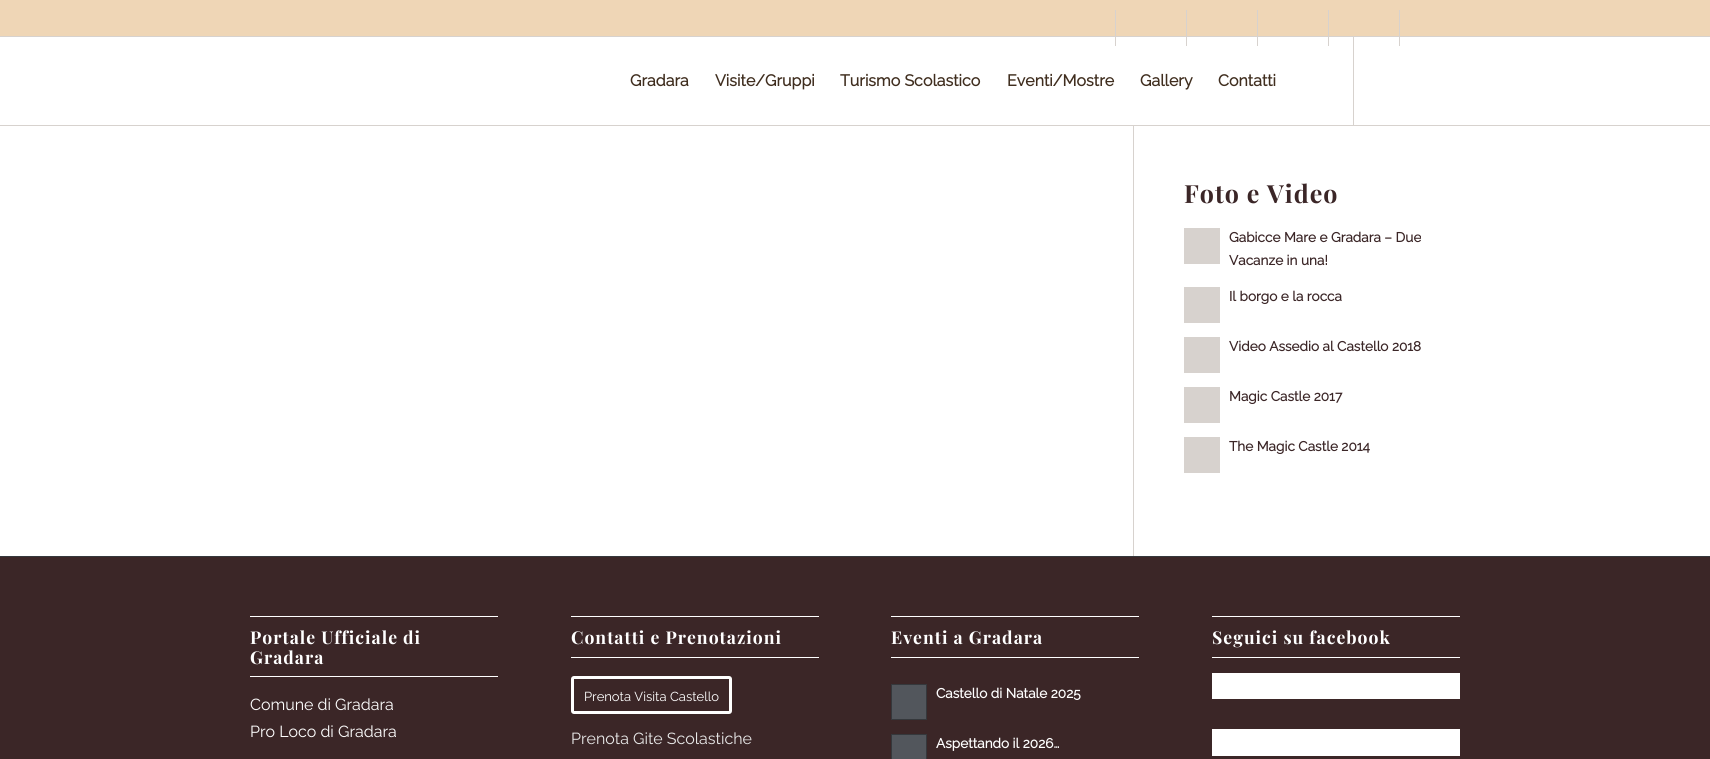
#include <cairo.h>
#include <math.h>
#include <stddef.h>


static void spaced_text(cairo_t *cr, double x, double y, const char *s, double letter, double word) {
    cairo_move_to(cr, x, y);
    while (*s) {
        char ch[5] = {0};
        int n = 0;
        do ch[n++] = *s++; while ((*s & 0xC0) == 0x80);
        cairo_show_text(cr, ch);
        cairo_rel_move_to(cr, letter + word * (*ch == ' '), 0);
    }
}

static void round_rect(cairo_t *cr, double x, double y, double w, double h, double r) {
    cairo_new_sub_path(cr);
    cairo_arc(cr, x + w - r, y + h - r, r, 0, M_PI / 2);
    cairo_arc(cr, x + r, y + h - r, r, M_PI / 2, M_PI);
    cairo_arc(cr, x + r, y + r, r, M_PI, 1.5 * M_PI);
    cairo_arc(cr, x + w - r, y + r, r, 1.5 * M_PI, 2 * M_PI);
    cairo_close_path(cr);
}

int main(void) {
    cairo_surface_t *surface = cairo_image_surface_create(CAIRO_FORMAT_RGB24, 1710, 759);
    cairo_t *cr = cairo_create(surface);
    cairo_font_options_t *options = cairo_font_options_create();
    cairo_font_options_set_hint_metrics(options, CAIRO_HINT_METRICS_OFF);
    cairo_font_options_set_hint_style(options, CAIRO_HINT_STYLE_NONE);
    cairo_set_font_options(cr, options);
    cairo_set_miter_limit(cr, 4);
    cairo_set_source_rgb(cr, 1, 1, 1);
    cairo_paint(cr);
    cairo_set_source_rgb(cr, 0.937, 0.839, 0.714);
    cairo_rectangle(cr, 0, 0, 1710, 36);
    cairo_fill(cr);
    cairo_set_source_rgb(cr, 0.843, 0.824, 0.808);
    cairo_rectangle(cr, 0, 36, 1710, 1);
    cairo_fill(cr);
    cairo_rectangle(cr, 1115, 10, 1, 36);
    cairo_fill(cr);
    cairo_rectangle(cr, 1186, 10, 1, 36);
    cairo_fill(cr);
    cairo_rectangle(cr, 1257, 10, 1, 36);
    cairo_fill(cr);
    cairo_rectangle(cr, 1328, 10, 1, 36);
    cairo_fill(cr);
    cairo_rectangle(cr, 1399, 10, 1, 36);
    cairo_fill(cr);
    cairo_rectangle(cr, 0, 125, 1710, 1);
    cairo_fill(cr);
    cairo_rectangle(cr, 1353, 37, 1, 88);
    cairo_fill(cr);
    cairo_select_font_face(cr, "Raleway", CAIRO_FONT_SLANT_NORMAL, CAIRO_FONT_WEIGHT_BOLD);
    cairo_set_font_size(cr, 16);
    cairo_set_source_rgb(cr, 0.251, 0.18, 0.122);
    cairo_move_to(cr, 630, 86);
    cairo_show_text(cr, "Gradara");
    cairo_move_to(cr, 715, 86);
    cairo_show_text(cr, "Visite/Gruppi");
    cairo_move_to(cr, 840, 86);
    cairo_show_text(cr, "Turismo Scolastico");
    cairo_move_to(cr, 1007, 86);
    cairo_show_text(cr, "Eventi/Mostre");
    cairo_move_to(cr, 1140, 86);
    cairo_show_text(cr, "Gallery");
    cairo_move_to(cr, 1218, 86);
    cairo_show_text(cr, "Contatti");
    cairo_set_source_rgb(cr, 0.843, 0.824, 0.808);
    cairo_rectangle(cr, 1133, 126, 1, 430);
    cairo_fill(cr);
    cairo_select_font_face(cr, "Playfair Display", CAIRO_FONT_SLANT_NORMAL, CAIRO_FONT_WEIGHT_BOLD);
    cairo_set_font_size(cr, 25);
    cairo_set_source_rgb(cr, 0.231, 0.149, 0.153);
    spaced_text(cr, 1184, 203, "Foto e Video", 1, 0);
    cairo_set_source_rgb(cr, 0.843, 0.824, 0.808);
    cairo_rectangle(cr, 1184, 228, 36, 36);
    cairo_fill(cr);
    cairo_select_font_face(cr, "Raleway", CAIRO_FONT_SLANT_NORMAL, CAIRO_FONT_WEIGHT_BOLD);
    cairo_set_font_size(cr, 13.6);
    cairo_set_source_rgb(cr, 0.231, 0.149, 0.153);
    cairo_move_to(cr, 1229, 242);
    cairo_show_text(cr, "Gabicce Mare e Gradara – Due");
    cairo_move_to(cr, 1229, 265);
    cairo_show_text(cr, "Vacanze in una!");
    cairo_set_source_rgb(cr, 0.843, 0.824, 0.808);
    cairo_rectangle(cr, 1184, 287, 36, 36);
    cairo_fill(cr);
    cairo_set_source_rgb(cr, 0.231, 0.149, 0.153);
    cairo_move_to(cr, 1229, 301);
    cairo_show_text(cr, "Il borgo e la rocca");
    cairo_set_source_rgb(cr, 0.843, 0.824, 0.808);
    cairo_rectangle(cr, 1184, 337, 36, 36);
    cairo_fill(cr);
    cairo_set_source_rgb(cr, 0.231, 0.149, 0.153);
    cairo_move_to(cr, 1229, 351);
    cairo_show_text(cr, "Video Assedio al Castello 2018");
    cairo_set_source_rgb(cr, 0.843, 0.824, 0.808);
    cairo_rectangle(cr, 1184, 387, 36, 36);
    cairo_fill(cr);
    cairo_set_source_rgb(cr, 0.231, 0.149, 0.153);
    cairo_move_to(cr, 1229, 401);
    cairo_show_text(cr, "Magic Castle 2017");
    cairo_set_source_rgb(cr, 0.843, 0.824, 0.808);
    cairo_rectangle(cr, 1184, 437, 36, 36);
    cairo_fill(cr);
    cairo_set_source_rgb(cr, 0.231, 0.149, 0.153);
    cairo_move_to(cr, 1229, 451);
    cairo_show_text(cr, "The Magic Castle 2014");
    cairo_rectangle(cr, 0, 557, 1710, 202);
    cairo_fill(cr);
    cairo_set_source_rgb(cr, 0.208, 0.22, 0.235);
    cairo_rectangle(cr, 0, 556, 1710, 1);
    cairo_fill(cr);
    cairo_set_source_rgb(cr, 1, 1, 1);
    cairo_rectangle(cr, 250, 616, 248, 1);
    cairo_fill(cr);
    cairo_rectangle(cr, 250, 676, 248, 1);
    cairo_fill(cr);
    cairo_select_font_face(cr, "Playfair Display", CAIRO_FONT_SLANT_NORMAL, CAIRO_FONT_WEIGHT_BOLD);
    cairo_set_font_size(cr, 17.6);
    spaced_text(cr, 250, 644, "Portale Ufficiale di", 1, 0);
    spaced_text(cr, 250, 664, "Gradara", 1, 0);
    cairo_select_font_face(cr, "Raleway Thin", CAIRO_FONT_SLANT_NORMAL, CAIRO_FONT_WEIGHT_NORMAL);
    cairo_set_font_size(cr, 16);
    cairo_move_to(cr, 250, 710);
    cairo_show_text(cr, "Comune di Gradara");
    cairo_move_to(cr, 250, 737);
    cairo_show_text(cr, "Pro Loco di Gradara");
    cairo_rectangle(cr, 571, 616, 248, 1);
    cairo_fill(cr);
    cairo_rectangle(cr, 571, 657, 248, 1);
    cairo_fill(cr);
    cairo_select_font_face(cr, "Playfair Display", CAIRO_FONT_SLANT_NORMAL, CAIRO_FONT_WEIGHT_BOLD);
    cairo_set_font_size(cr, 17.6);
    spaced_text(cr, 571, 644, "Contatti e Prenotazioni", 1, 0);
    round_rect(cr, 572.5, 677.5, 158, 35, 1.5);
    cairo_set_line_width(cr, 3);
    cairo_stroke(cr);
    cairo_select_font_face(cr, "Raleway Thin", CAIRO_FONT_SLANT_NORMAL, CAIRO_FONT_WEIGHT_NORMAL);
    cairo_set_font_size(cr, 13);
    cairo_move_to(cr, 584, 701);
    cairo_show_text(cr, "Prenota Visita Castello");
    cairo_set_font_size(cr, 16);
    cairo_set_source_rgb(cr, 0.91, 0.91, 0.91);
    cairo_move_to(cr, 571, 744);
    cairo_show_text(cr, "Prenota Gite Scolastiche");
    cairo_set_source_rgb(cr, 1, 1, 1);
    cairo_rectangle(cr, 891, 616, 248, 1);
    cairo_fill(cr);
    cairo_rectangle(cr, 891, 657, 248, 1);
    cairo_fill(cr);
    cairo_select_font_face(cr, "Playfair Display", CAIRO_FONT_SLANT_NORMAL, CAIRO_FONT_WEIGHT_BOLD);
    cairo_set_font_size(cr, 17.6);
    spaced_text(cr, 891, 644, "Eventi a Gradara", 1, 0);
    cairo_set_source_rgb(cr, 0.322, 0.337, 0.361);
    cairo_rectangle(cr, 891.5, 684.5, 35, 35);
    cairo_fill_preserve(cr);
    cairo_set_source_rgb(cr, 0.208, 0.22, 0.235);
    cairo_set_line_width(cr, 1);
    cairo_stroke(cr);
    cairo_select_font_face(cr, "Raleway", CAIRO_FONT_SLANT_NORMAL, CAIRO_FONT_WEIGHT_BOLD);
    cairo_set_font_size(cr, 13.6);
    cairo_set_source_rgb(cr, 1, 1, 1);
    cairo_move_to(cr, 936, 698);
    cairo_show_text(cr, "Castello di Natale 2025");
    cairo_set_source_rgb(cr, 0.322, 0.337, 0.361);
    cairo_rectangle(cr, 891.5, 734.5, 35, 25);
    cairo_fill_preserve(cr);
    cairo_set_source_rgb(cr, 0.208, 0.22, 0.235);
    cairo_stroke(cr);
    cairo_set_source_rgb(cr, 1, 1, 1);
    cairo_move_to(cr, 936, 748);
    cairo_show_text(cr, "Aspettando il 2026…");
    cairo_rectangle(cr, 1212, 616, 248, 1);
    cairo_fill(cr);
    cairo_rectangle(cr, 1212, 657, 248, 1);
    cairo_fill(cr);
    cairo_select_font_face(cr, "Playfair Display", CAIRO_FONT_SLANT_NORMAL, CAIRO_FONT_WEIGHT_BOLD);
    cairo_set_font_size(cr, 17.6);
    spaced_text(cr, 1212, 644, "Seguici su facebook", 1, 0);
    cairo_rectangle(cr, 1212, 673, 248, 26);
    cairo_fill(cr);
    cairo_rectangle(cr, 1212, 729, 248, 27);
    cairo_fill(cr);
    cairo_surface_write_to_png(surface, "page.png");
    cairo_font_options_destroy(options);
    cairo_destroy(cr);
    cairo_surface_destroy(surface);
    return 0;
}
